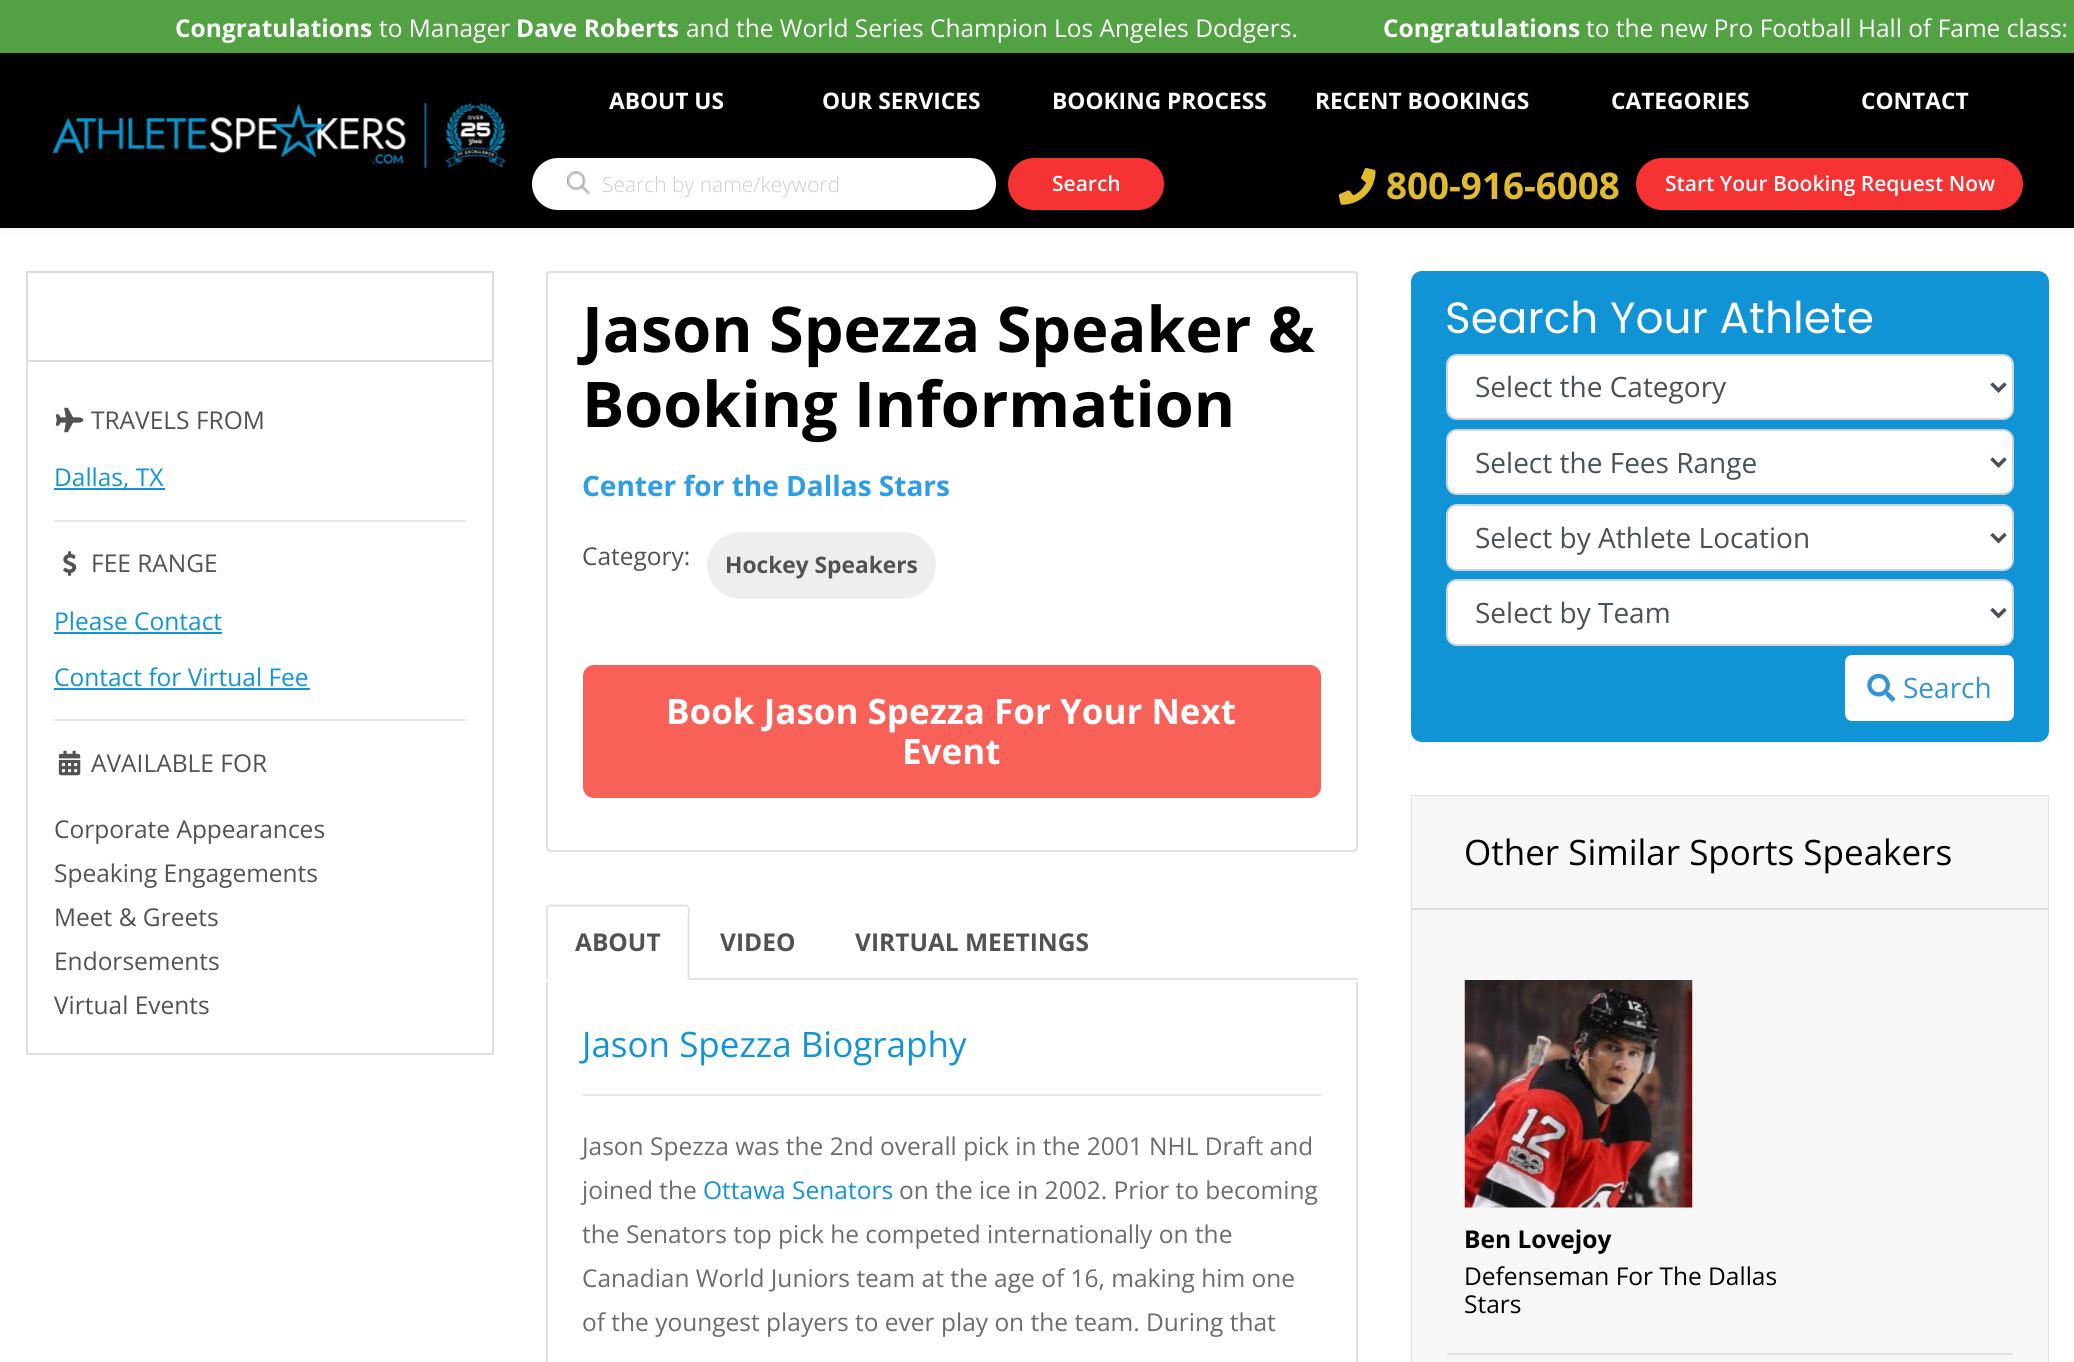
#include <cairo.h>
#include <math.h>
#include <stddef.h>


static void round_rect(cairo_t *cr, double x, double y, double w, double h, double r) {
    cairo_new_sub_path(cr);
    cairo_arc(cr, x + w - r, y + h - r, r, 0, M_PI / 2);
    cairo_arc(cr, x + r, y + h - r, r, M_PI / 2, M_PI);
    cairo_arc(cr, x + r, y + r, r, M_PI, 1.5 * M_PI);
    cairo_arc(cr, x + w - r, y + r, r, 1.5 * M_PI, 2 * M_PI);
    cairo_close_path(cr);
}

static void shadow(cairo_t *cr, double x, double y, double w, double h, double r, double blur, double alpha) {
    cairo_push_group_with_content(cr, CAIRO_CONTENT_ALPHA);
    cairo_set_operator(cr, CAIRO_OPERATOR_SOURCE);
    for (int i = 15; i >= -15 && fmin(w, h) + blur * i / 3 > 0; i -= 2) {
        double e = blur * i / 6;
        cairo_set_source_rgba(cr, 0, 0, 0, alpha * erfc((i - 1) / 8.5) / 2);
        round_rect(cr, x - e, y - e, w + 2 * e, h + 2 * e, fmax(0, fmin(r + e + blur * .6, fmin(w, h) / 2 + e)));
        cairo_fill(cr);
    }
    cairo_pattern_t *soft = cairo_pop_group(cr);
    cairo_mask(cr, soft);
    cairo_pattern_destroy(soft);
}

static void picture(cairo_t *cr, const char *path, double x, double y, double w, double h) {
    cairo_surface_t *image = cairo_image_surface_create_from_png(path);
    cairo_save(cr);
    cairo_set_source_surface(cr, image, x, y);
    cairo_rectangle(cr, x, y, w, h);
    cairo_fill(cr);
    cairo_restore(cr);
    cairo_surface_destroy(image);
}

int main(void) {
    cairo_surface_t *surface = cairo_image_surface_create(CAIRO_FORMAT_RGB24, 2074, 1362);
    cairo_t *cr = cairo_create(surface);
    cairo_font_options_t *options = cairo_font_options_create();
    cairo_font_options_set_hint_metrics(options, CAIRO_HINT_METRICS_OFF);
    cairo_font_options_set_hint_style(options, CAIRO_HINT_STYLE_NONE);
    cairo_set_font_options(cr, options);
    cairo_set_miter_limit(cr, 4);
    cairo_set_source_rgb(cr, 1, 1, 1);
    cairo_paint(cr);
    cairo_set_source_rgb(cr, 0, 0, 0);
    shadow(cr, 0, 0, 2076, 228, 0, 4.5, 0.1);
    cairo_set_source_rgb(cr, 0, 0, 0);
    cairo_rectangle(cr, 0, 53, 2074, 175);
    cairo_fill(cr);
    cairo_set_source_rgb(cr, 0.322, 0.635, 0.263);
    cairo_rectangle(cr, 0, 0, 2074, 53);
    cairo_fill(cr);
    cairo_select_font_face(cr, "Open Sans", CAIRO_FONT_SLANT_NORMAL, CAIRO_FONT_WEIGHT_BOLD);
    cairo_set_font_size(cr, 24.5);
    cairo_set_source_rgb(cr, 1, 1, 1);
    cairo_move_to(cr, 175, 37);
    cairo_show_text(cr, "Congratulations");
    cairo_select_font_face(cr, "Open Sans", CAIRO_FONT_SLANT_NORMAL, CAIRO_FONT_WEIGHT_NORMAL);
    cairo_move_to(cr, 379, 37);
    cairo_show_text(cr, "to Manager");
    cairo_select_font_face(cr, "Open Sans", CAIRO_FONT_SLANT_NORMAL, CAIRO_FONT_WEIGHT_BOLD);
    cairo_move_to(cr, 516, 37);
    cairo_show_text(cr, "Dave Roberts");
    cairo_select_font_face(cr, "Open Sans", CAIRO_FONT_SLANT_NORMAL, CAIRO_FONT_WEIGHT_NORMAL);
    cairo_move_to(cr, 686, 37);
    cairo_show_text(cr, "and the World Series Champion Los Angeles Dodgers.");
    cairo_select_font_face(cr, "Open Sans", CAIRO_FONT_SLANT_NORMAL, CAIRO_FONT_WEIGHT_BOLD);
    cairo_move_to(cr, 1383, 37);
    cairo_show_text(cr, "Congratulations");
    cairo_select_font_face(cr, "Open Sans", CAIRO_FONT_SLANT_NORMAL, CAIRO_FONT_WEIGHT_NORMAL);
    cairo_move_to(cr, 1586, 37);
    cairo_show_text(cr, "to the new Pro Football Hall of Fame class:");
    picture(cr, "img1.png", 52, 103, 454, 66);
    cairo_select_font_face(cr, "Open Sans", CAIRO_FONT_SLANT_NORMAL, CAIRO_FONT_WEIGHT_BOLD);
    cairo_set_font_size(cr, 22.75);
    cairo_move_to(cr, 609, 109);
    cairo_show_text(cr, "ABOUT US");
    cairo_move_to(cr, 822, 109);
    cairo_show_text(cr, "OUR SERVICES");
    cairo_move_to(cr, 1052, 109);
    cairo_show_text(cr, "BOOKING PROCESS");
    cairo_move_to(cr, 1315, 109);
    cairo_show_text(cr, "RECENT BOOKINGS");
    cairo_move_to(cr, 1611, 109);
    cairo_show_text(cr, "CATEGORIES");
    cairo_move_to(cr, 1861, 109);
    cairo_show_text(cr, "CONTACT");
    round_rect(cr, 532, 158, 464, 52, 26);
    cairo_fill(cr);
    picture(cr, "img2.png", 567, 171, 23, 24);
    cairo_select_font_face(cr, "Open Sans Light", CAIRO_FONT_SLANT_NORMAL, CAIRO_FONT_WEIGHT_NORMAL);
    cairo_set_font_size(cr, 21);
    cairo_set_source_rgb(cr, 0.8, 0.8, 0.8);
    cairo_move_to(cr, 602, 192);
    cairo_show_text(cr, "Search by name/keyword");
    cairo_set_source_rgb(cr, 0.965, 0.196, 0.196);
    round_rect(cr, 1008, 158, 156, 52, 26);
    cairo_fill(cr);
    cairo_select_font_face(cr, "Open Sans SemiBold", CAIRO_FONT_SLANT_NORMAL, CAIRO_FONT_WEIGHT_NORMAL);
    cairo_set_source_rgb(cr, 1, 1, 1);
    cairo_move_to(cr, 1052, 191);
    cairo_show_text(cr, "Search");
    picture(cr, "img3.png", 1338, 168, 38, 37);
    cairo_select_font_face(cr, "Open Sans", CAIRO_FONT_SLANT_NORMAL, CAIRO_FONT_WEIGHT_BOLD);
    cairo_set_font_size(cr, 36.75);
    cairo_set_source_rgb(cr, 0.882, 0.733, 0.18);
    cairo_move_to(cr, 1386, 199);
    cairo_show_text(cr, "800-916-6008");
    cairo_set_source_rgb(cr, 0.965, 0.196, 0.196);
    round_rect(cr, 1636, 158, 387, 52, 26);
    cairo_fill(cr);
    cairo_select_font_face(cr, "Open Sans SemiBold", CAIRO_FONT_SLANT_NORMAL, CAIRO_FONT_WEIGHT_NORMAL);
    cairo_set_font_size(cr, 21);
    cairo_set_source_rgb(cr, 1, 1, 1);
    cairo_move_to(cr, 1665, 191);
    cairo_show_text(cr, "Start Your Booking Request Now");
    cairo_rectangle(cr, 27, 272, 466, 782);
    cairo_set_source_rgb(cr, 0.878, 0.878, 0.878);
    cairo_stroke(cr);
    cairo_rectangle(cr, 27, 272, 466, 89);
    cairo_set_source_rgb(cr, 0.867, 0.867, 0.867);
    cairo_stroke(cr);
    picture(cr, "img4.png", 55, 407, 29, 26);
    cairo_select_font_face(cr, "Open Sans", CAIRO_FONT_SLANT_NORMAL, CAIRO_FONT_WEIGHT_NORMAL);
    cairo_set_font_size(cr, 24.5);
    cairo_set_source_rgb(cr, 0.322, 0.322, 0.322);
    cairo_move_to(cr, 91, 429);
    cairo_show_text(cr, "TRAVELS FROM");
    cairo_set_source_rgb(cr, 0.063, 0.58, 0.835);
    cairo_rectangle(cr, 54, 488, 111, 2);
    cairo_fill(cr);
    cairo_move_to(cr, 54, 486);
    cairo_show_text(cr, "Dallas, TX");
    cairo_set_source_rgb(cr, 0.902, 0.902, 0.902);
    cairo_rectangle(cr, 54, 520, 412, 2);
    cairo_fill(cr);
    picture(cr, "img5.png", 63, 551, 14, 25);
    cairo_set_source_rgb(cr, 0.322, 0.322, 0.322);
    cairo_move_to(cr, 91, 572);
    cairo_show_text(cr, "FEE RANGE");
    cairo_set_source_rgb(cr, 0.063, 0.58, 0.835);
    cairo_move_to(cr, 54, 630);
    cairo_show_text(cr, "Please Contact");
    cairo_rectangle(cr, 54, 632, 168, 2);
    cairo_fill(cr);
    cairo_move_to(cr, 54, 686);
    cairo_show_text(cr, "Contact for Virtual Fee");
    cairo_rectangle(cr, 54, 688, 256, 2);
    cairo_fill(cr);
    cairo_set_source_rgb(cr, 0.902, 0.902, 0.902);
    cairo_rectangle(cr, 54, 719, 412, 2);
    cairo_fill(cr);
    picture(cr, "img6.png", 58, 750, 23, 26);
    cairo_set_source_rgb(cr, 0.322, 0.322, 0.322);
    cairo_move_to(cr, 91, 772);
    cairo_show_text(cr, "AVAILABLE FOR");
    cairo_move_to(cr, 54, 838);
    cairo_show_text(cr, "Corporate Appearances");
    cairo_move_to(cr, 54, 882);
    cairo_show_text(cr, "Speaking Engagements");
    cairo_move_to(cr, 54, 926);
    cairo_show_text(cr, "Meet & Greets");
    cairo_move_to(cr, 54, 970);
    cairo_show_text(cr, "Endorsements");
    cairo_move_to(cr, 54, 1014);
    cairo_show_text(cr, "Virtual Events");
    round_rect(cr, 547, 272, 810, 579, 3);
    cairo_set_source_rgb(cr, 0.878, 0.878, 0.878);
    cairo_stroke(cr);
    cairo_select_font_face(cr, "Open Sans", CAIRO_FONT_SLANT_NORMAL, CAIRO_FONT_WEIGHT_BOLD);
    cairo_set_font_size(cr, 63);
    cairo_set_source_rgb(cr, 0, 0, 0);
    cairo_move_to(cr, 582, 352);
    cairo_show_text(cr, "Jason Spezza Speaker &");
    cairo_move_to(cr, 582, 427);
    cairo_show_text(cr, "Booking Information");
    cairo_set_font_size(cr, 28);
    cairo_set_source_rgb(cr, 0.176, 0.616, 0.91);
    cairo_move_to(cr, 582, 496);
    cairo_show_text(cr, "Center for the Dallas Stars");
    cairo_select_font_face(cr, "Open Sans", CAIRO_FONT_SLANT_NORMAL, CAIRO_FONT_WEIGHT_NORMAL);
    cairo_set_font_size(cr, 24.5);
    cairo_set_source_rgb(cr, 0.322, 0.322, 0.322);
    cairo_move_to(cr, 582, 565);
    cairo_show_text(cr, "Category:");
    cairo_set_source_rgb(cr, 0.933, 0.933, 0.933);
    round_rect(cr, 707, 532, 229, 67, 33.5);
    cairo_fill(cr);
    cairo_select_font_face(cr, "Open Sans", CAIRO_FONT_SLANT_NORMAL, CAIRO_FONT_WEIGHT_BOLD);
    cairo_set_font_size(cr, 22.75);
    cairo_set_source_rgb(cr, 0.322, 0.322, 0.322);
    cairo_move_to(cr, 725, 573);
    cairo_show_text(cr, "Hockey Speakers");
    cairo_set_source_rgb(cr, 0.976, 0.376, 0.345);
    round_rect(cr, 583, 665, 738, 133, 11);
    cairo_fill(cr);
    cairo_set_font_size(cr, 35);
    cairo_set_source_rgb(cr, 1, 1, 1);
    cairo_move_to(cr, 666, 724);
    cairo_show_text(cr, "Book Jason Spezza For Your Next");
    cairo_move_to(cr, 902, 764);
    cairo_show_text(cr, "Event");
    cairo_set_source_rgb(cr, 0.871, 0.886, 0.902);
    cairo_rectangle(cr, 546, 978, 812, 2);
    cairo_fill(cr);
    cairo_set_source_rgb(cr, 1, 1, 1);
    round_rect(cr, 546, 905, 144, 75, 4);
    cairo_fill(cr);
    cairo_new_path(cr);
    cairo_move_to(cr, 688, 978.5);
    cairo_line_to(cr, 686.5, 979);
    cairo_line_to(cr, 572, 979);
    cairo_line_to(cr, 549.5, 979);
    cairo_line_to(cr, 547.5, 978.5);
    cairo_set_line_width(cr, 1.8);
    cairo_stroke(cr);
    cairo_new_path(cr);
    cairo_move_to(cr, 547.5, 978.5);
    cairo_line_to(cr, 547, 976.5);
    cairo_line_to(cr, 547, 919.5);
    cairo_curve_to(cr, 547, 914.5, 545, 905.5, 549.5, 905.5);
    cairo_line_to(cr, 686, 905.5);
    cairo_curve_to(cr, 690.5, 905.5, 688.5, 914.5, 688.5, 919.5);
    cairo_line_to(cr, 688.5, 976.5);
    cairo_line_to(cr, 688, 978.5);
    cairo_set_source_rgb(cr, 0.871, 0.886, 0.902);
    cairo_stroke(cr);
    cairo_set_font_size(cr, 24.5);
    cairo_set_source_rgb(cr, 0.322, 0.322, 0.322);
    cairo_move_to(cr, 575, 951);
    cairo_show_text(cr, "ABOUT");
    cairo_move_to(cr, 720, 951);
    cairo_show_text(cr, "VIDEO");
    cairo_move_to(cr, 855, 951);
    cairo_show_text(cr, "VIRTUAL MEETINGS");
    cairo_set_source_rgb(cr, 0.878, 0.878, 0.878);
    cairo_rectangle(cr, 1356, 982, 2, 380);
    cairo_fill(cr);
    cairo_rectangle(cr, 546, 982, 2, 380);
    cairo_fill(cr);
    cairo_select_font_face(cr, "Open Sans", CAIRO_FONT_SLANT_NORMAL, CAIRO_FONT_WEIGHT_NORMAL);
    cairo_set_font_size(cr, 35);
    cairo_set_source_rgb(cr, 0.063, 0.58, 0.835);
    cairo_move_to(cr, 582, 1057);
    cairo_show_text(cr, "Jason Spezza Biography");
    cairo_set_source_rgb(cr, 0.902, 0.902, 0.902);
    cairo_rectangle(cr, 583, 1094, 738, 2);
    cairo_fill(cr);
    cairo_set_font_size(cr, 24.5);
    cairo_set_source_rgb(cr, 0.416, 0.424, 0.427);
    cairo_move_to(cr, 582, 1155);
    cairo_show_text(cr, "Jason Spezza was the 2nd overall pick in the 2001 NHL Draft and");
    cairo_move_to(cr, 582, 1199);
    cairo_show_text(cr, "joined the");
    cairo_set_source_rgb(cr, 0.063, 0.58, 0.835);
    cairo_move_to(cr, 703, 1199);
    cairo_show_text(cr, "Ottawa Senators");
    cairo_set_source_rgb(cr, 0.416, 0.424, 0.427);
    cairo_move_to(cr, 899, 1199);
    cairo_show_text(cr, "on the ice in 2002. Prior to becoming");
    cairo_move_to(cr, 582, 1243);
    cairo_show_text(cr, "the Senators top pick he competed internationally on the");
    cairo_move_to(cr, 582, 1287);
    cairo_show_text(cr, "Canadian World Juniors team at the age of 16, making him one");
    cairo_move_to(cr, 582, 1331);
    cairo_show_text(cr, "of the youngest players to ever play on the team. During that");
    cairo_set_source_rgb(cr, 0.063, 0.58, 0.835);
    round_rect(cr, 1411, 271, 638, 471, 11);
    cairo_fill(cr);
    cairo_select_font_face(cr, "Poppins", CAIRO_FONT_SLANT_NORMAL, CAIRO_FONT_WEIGHT_NORMAL);
    cairo_set_font_size(cr, 43.75);
    cairo_set_source_rgb(cr, 1, 1, 1);
    cairo_move_to(cr, 1445, 333);
    cairo_show_text(cr, "Search Your Athlete");
    round_rect(cr, 1447, 355, 566, 64, 10);
    cairo_fill_preserve(cr);
    cairo_set_source_rgb(cr, 0.808, 0.831, 0.855);
    cairo_set_line_width(cr, 2);
    cairo_stroke(cr);
    cairo_new_path(cr);
    cairo_move_to(cr, 1991.5, 383.5);
    cairo_line_to(cr, 1998.5, 390.5);
    cairo_line_to(cr, 2005.5, 383.5);
    cairo_set_source_rgb(cr, 0.286, 0.314, 0.341);
    cairo_set_line_width(cr, 3.5);
    cairo_stroke(cr);
    cairo_select_font_face(cr, "Open Sans", CAIRO_FONT_SLANT_NORMAL, CAIRO_FONT_WEIGHT_NORMAL);
    cairo_set_font_size(cr, 28);
    cairo_move_to(cr, 1475, 397);
    cairo_show_text(cr, "Select the Category");
    cairo_set_source_rgb(cr, 1, 1, 1);
    round_rect(cr, 1447, 430, 566, 64, 10);
    cairo_fill_preserve(cr);
    cairo_set_source_rgb(cr, 0.808, 0.831, 0.855);
    cairo_set_line_width(cr, 2);
    cairo_stroke(cr);
    cairo_new_path(cr);
    cairo_move_to(cr, 1991.5, 458.5);
    cairo_line_to(cr, 1998.5, 465.5);
    cairo_line_to(cr, 2005.5, 458.5);
    cairo_set_source_rgb(cr, 0.286, 0.314, 0.341);
    cairo_set_line_width(cr, 3.5);
    cairo_stroke(cr);
    cairo_move_to(cr, 1475, 473);
    cairo_show_text(cr, "Select the Fees Range");
    cairo_set_source_rgb(cr, 1, 1, 1);
    round_rect(cr, 1447, 505, 566, 65, 10);
    cairo_fill_preserve(cr);
    cairo_set_source_rgb(cr, 0.808, 0.831, 0.855);
    cairo_set_line_width(cr, 2);
    cairo_stroke(cr);
    cairo_new_path(cr);
    cairo_move_to(cr, 1991.5, 534);
    cairo_line_to(cr, 1998.5, 541);
    cairo_line_to(cr, 2005.5, 534);
    cairo_set_source_rgb(cr, 0.286, 0.314, 0.341);
    cairo_set_line_width(cr, 3.5);
    cairo_stroke(cr);
    cairo_move_to(cr, 1475, 548);
    cairo_show_text(cr, "Select by Athlete Location");
    cairo_set_source_rgb(cr, 1, 1, 1);
    round_rect(cr, 1447, 580, 566, 65, 10);
    cairo_fill_preserve(cr);
    cairo_set_source_rgb(cr, 0.808, 0.831, 0.855);
    cairo_set_line_width(cr, 2);
    cairo_stroke(cr);
    cairo_new_path(cr);
    cairo_move_to(cr, 1991.5, 609);
    cairo_line_to(cr, 1998.5, 616);
    cairo_line_to(cr, 2005.5, 609);
    cairo_set_source_rgb(cr, 0.286, 0.314, 0.341);
    cairo_set_line_width(cr, 3.5);
    cairo_stroke(cr);
    cairo_move_to(cr, 1475, 623);
    cairo_show_text(cr, "Select by Team");
    cairo_set_source_rgb(cr, 1, 1, 1);
    round_rect(cr, 1845, 655, 169, 66, 7);
    cairo_fill(cr);
    picture(cr, "img7.png", 1867, 673, 29, 29);
    cairo_set_source_rgb(cr, 0.208, 0.58, 0.835);
    cairo_move_to(cr, 1903, 698);
    cairo_show_text(cr, "Search");
    cairo_rectangle(cr, 1412, 796, 636, 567);
    cairo_set_source_rgb(cr, 0.878, 0.878, 0.878);
    cairo_set_line_width(cr, 2);
    cairo_stroke(cr);
    cairo_set_source_rgb(cr, 0.965, 0.965, 0.965);
    cairo_rectangle(cr, 1412, 796, 636, 112);
    cairo_fill(cr);
    cairo_set_font_size(cr, 35);
    cairo_set_source_rgb(cr, 0, 0, 0);
    cairo_move_to(cr, 1464, 865);
    cairo_show_text(cr, "Other Similar Sports Speakers");
    cairo_set_source_rgb(cr, 0.965, 0.965, 0.965);
    cairo_rectangle(cr, 1412, 910, 636, 452);
    cairo_fill(cr);
    cairo_set_source_rgb(cr, 0.878, 0.878, 0.878);
    cairo_rectangle(cr, 1412, 908, 636, 2);
    cairo_fill(cr);
    cairo_rectangle(cr, 1447, 1353, 566, 2);
    cairo_fill(cr);
    picture(cr, "img8.png", 1464, 980, 229, 228);
    cairo_select_font_face(cr, "Open Sans", CAIRO_FONT_SLANT_NORMAL, CAIRO_FONT_WEIGHT_BOLD);
    cairo_set_font_size(cr, 24.5);
    cairo_set_source_rgb(cr, 0, 0, 0);
    cairo_move_to(cr, 1464, 1248);
    cairo_show_text(cr, "Ben Lovejoy");
    cairo_select_font_face(cr, "Open Sans", CAIRO_FONT_SLANT_NORMAL, CAIRO_FONT_WEIGHT_NORMAL);
    cairo_move_to(cr, 1464, 1285);
    cairo_show_text(cr, "Defenseman For The Dallas");
    cairo_move_to(cr, 1464, 1313);
    cairo_show_text(cr, "Stars");
    cairo_surface_write_to_png(surface, "page.png");
    cairo_font_options_destroy(options);
    cairo_destroy(cr);
    cairo_surface_destroy(surface);
    return 0;
}
